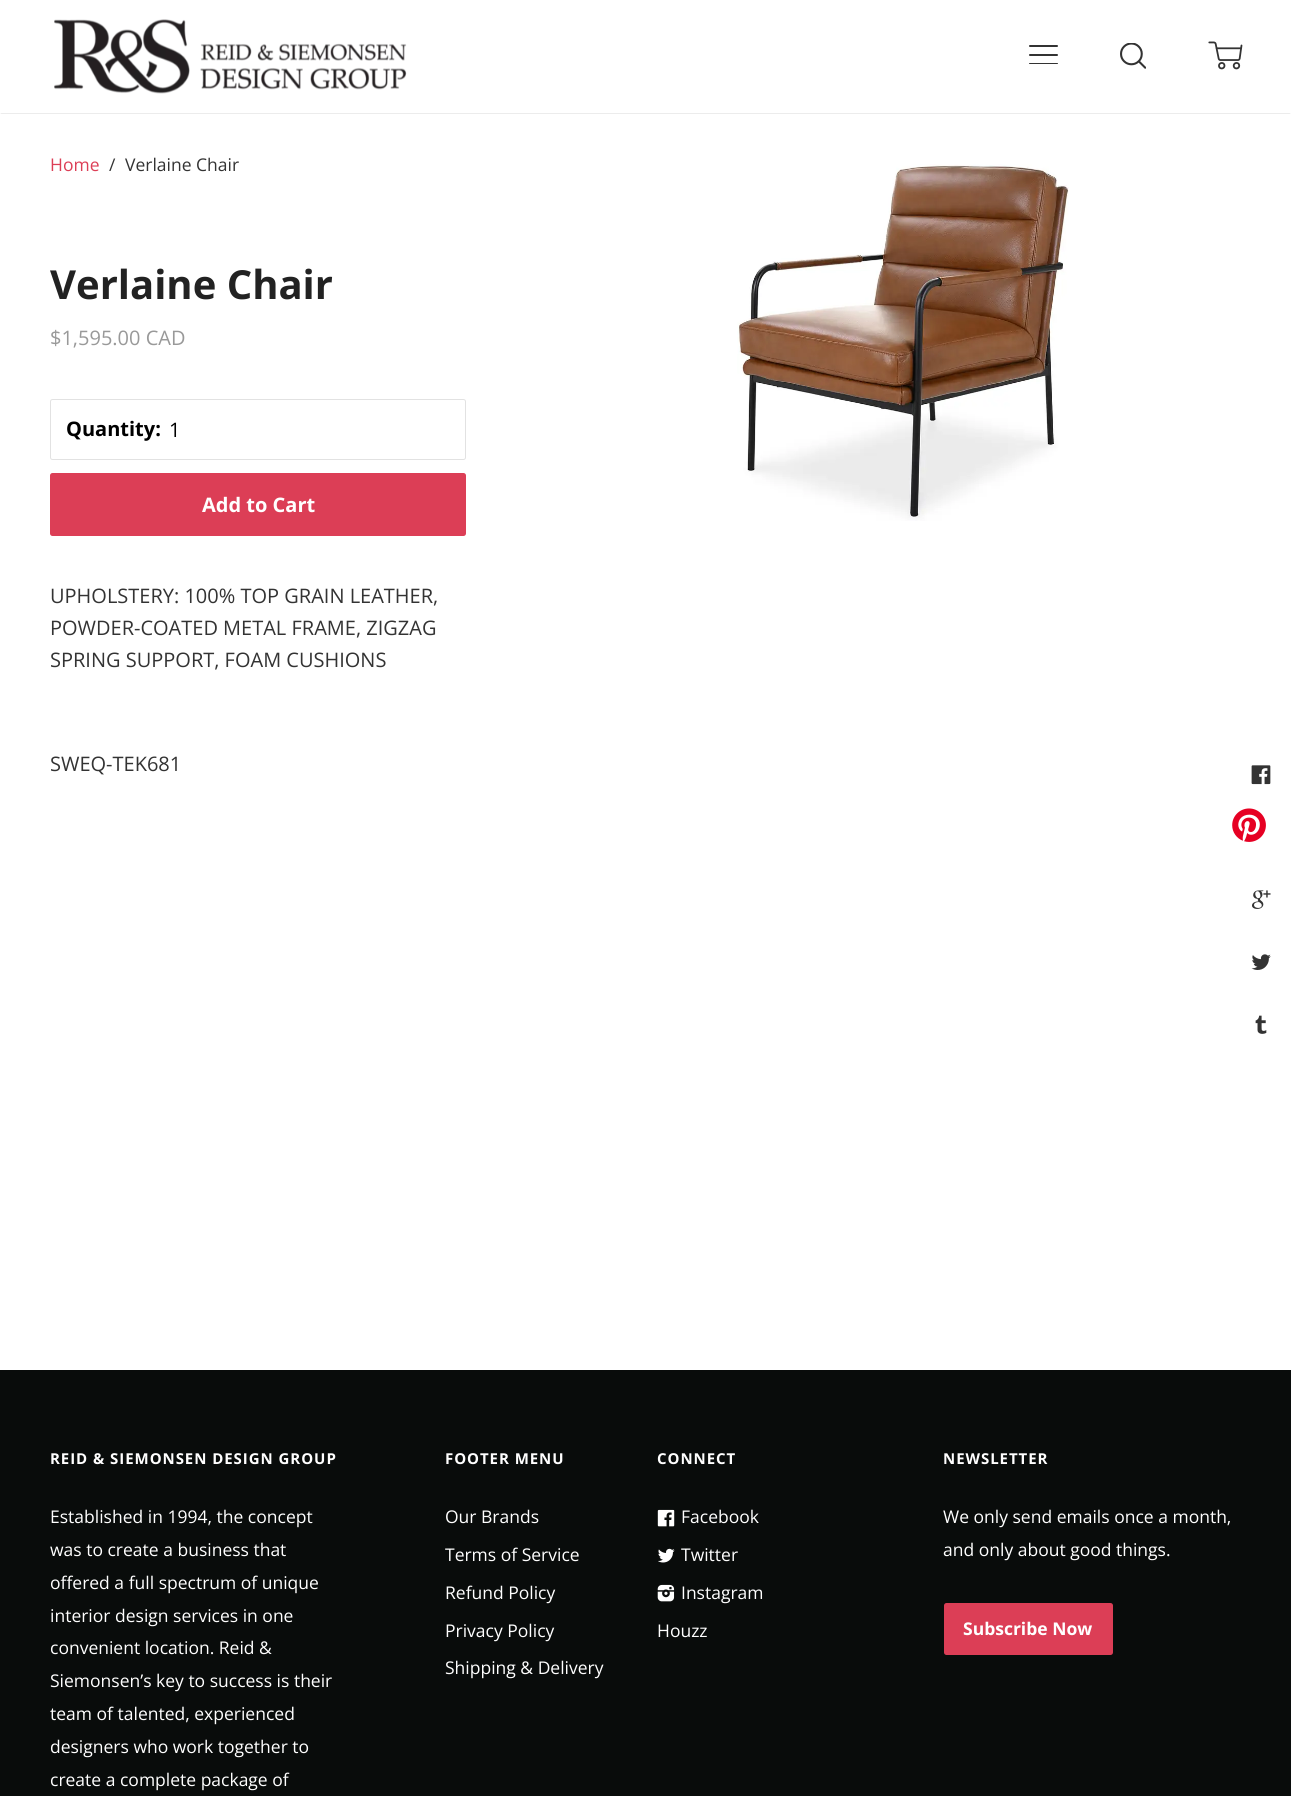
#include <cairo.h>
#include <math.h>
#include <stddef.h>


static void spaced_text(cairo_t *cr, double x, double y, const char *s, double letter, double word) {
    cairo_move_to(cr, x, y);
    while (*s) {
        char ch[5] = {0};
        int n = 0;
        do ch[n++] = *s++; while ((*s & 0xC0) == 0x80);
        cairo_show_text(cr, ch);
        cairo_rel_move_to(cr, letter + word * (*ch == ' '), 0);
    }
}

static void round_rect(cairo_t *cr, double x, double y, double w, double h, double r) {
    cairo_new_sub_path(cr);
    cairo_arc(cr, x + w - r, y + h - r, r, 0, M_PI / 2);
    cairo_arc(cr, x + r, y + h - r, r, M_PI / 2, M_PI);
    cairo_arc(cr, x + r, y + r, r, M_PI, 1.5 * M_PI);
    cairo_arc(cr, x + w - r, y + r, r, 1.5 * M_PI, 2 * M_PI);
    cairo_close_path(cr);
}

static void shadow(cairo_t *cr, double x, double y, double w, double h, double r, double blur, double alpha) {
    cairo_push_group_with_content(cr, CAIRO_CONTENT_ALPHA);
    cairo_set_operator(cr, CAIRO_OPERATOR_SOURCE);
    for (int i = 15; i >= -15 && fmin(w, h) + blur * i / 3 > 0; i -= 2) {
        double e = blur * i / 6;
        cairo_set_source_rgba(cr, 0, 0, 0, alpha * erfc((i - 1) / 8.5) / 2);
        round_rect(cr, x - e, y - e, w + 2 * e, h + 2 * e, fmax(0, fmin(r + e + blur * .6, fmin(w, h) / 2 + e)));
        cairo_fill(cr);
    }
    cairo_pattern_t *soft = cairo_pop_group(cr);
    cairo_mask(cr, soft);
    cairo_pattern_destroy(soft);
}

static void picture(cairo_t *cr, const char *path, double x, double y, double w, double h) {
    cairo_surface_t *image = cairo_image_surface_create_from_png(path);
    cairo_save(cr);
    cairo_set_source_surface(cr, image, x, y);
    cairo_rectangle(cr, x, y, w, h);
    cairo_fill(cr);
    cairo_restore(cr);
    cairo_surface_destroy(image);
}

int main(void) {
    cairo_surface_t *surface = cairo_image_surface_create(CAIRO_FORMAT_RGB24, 1291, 1796);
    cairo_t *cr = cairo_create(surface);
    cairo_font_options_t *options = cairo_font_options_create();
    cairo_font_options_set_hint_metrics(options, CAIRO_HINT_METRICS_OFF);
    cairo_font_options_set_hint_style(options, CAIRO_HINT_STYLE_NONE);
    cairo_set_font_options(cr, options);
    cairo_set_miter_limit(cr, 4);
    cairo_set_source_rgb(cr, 1, 1, 1);
    cairo_paint(cr);
    cairo_set_source_rgb(cr, 0, 0, 0);
    shadow(cr, 1, 3, 1289, 110, 0, 0.5, 0.3);
    cairo_set_source_rgb(cr, 1, 1, 1);
    cairo_rectangle(cr, 0, 2, 1291, 111);
    cairo_fill(cr);
    picture(cr, "img1.png", 54, 19, 353, 75);
    cairo_set_source_rgb(cr, 0.2, 0.2, 0.2);
    round_rect(cr, 1029, 45, 29, 2, 1);
    cairo_fill(cr);
    round_rect(cr, 1029, 54, 29, 2, 1);
    cairo_fill(cr);
    round_rect(cr, 1029, 63, 29, 1, 0.5);
    cairo_fill(cr);
    picture(cr, "img2.png", 1120, 43, 26, 26);
    picture(cr, "img3.png", 1208, 41, 35, 29);
    cairo_select_font_face(cr, "Open Sans", CAIRO_FONT_SLANT_NORMAL, CAIRO_FONT_WEIGHT_NORMAL);
    cairo_set_font_size(cr, 17.5);
    cairo_set_source_rgb(cr, 0.863, 0.243, 0.337);
    cairo_move_to(cr, 50, 171);
    cairo_show_text(cr, "Home");
    cairo_set_source_rgb(cr, 0.2, 0.2, 0.2);
    cairo_move_to(cr, 109, 171);
    cairo_show_text(cr, "/");
    cairo_move_to(cr, 125, 171);
    cairo_show_text(cr, "Verlaine Chair");
    cairo_select_font_face(cr, "Open Sans", CAIRO_FONT_SLANT_NORMAL, CAIRO_FONT_WEIGHT_BOLD);
    cairo_set_font_size(cr, 40);
    cairo_set_source_rgb(cr, 0.133, 0.133, 0.133);
    cairo_move_to(cr, 50, 299);
    cairo_show_text(cr, "Verlaine Chair");
    cairo_select_font_face(cr, "Open Sans", CAIRO_FONT_SLANT_NORMAL, CAIRO_FONT_WEIGHT_NORMAL);
    cairo_set_font_size(cr, 20);
    cairo_set_source_rgb(cr, 0.6, 0.6, 0.6);
    cairo_move_to(cr, 50, 345);
    cairo_show_text(cr, "$1,595.00 CAD");
    round_rect(cr, 50.5, 399.5, 415, 60, 2);
    cairo_set_source_rgb(cr, 0.886, 0.886, 0.886);
    cairo_set_line_width(cr, 1);
    cairo_stroke(cr);
    cairo_select_font_face(cr, "Open Sans", CAIRO_FONT_SLANT_NORMAL, CAIRO_FONT_WEIGHT_BOLD);
    cairo_set_source_rgb(cr, 0, 0, 0);
    cairo_move_to(cr, 66, 436);
    cairo_show_text(cr, "Quantity:");
    cairo_select_font_face(cr, "Open Sans", CAIRO_FONT_SLANT_NORMAL, CAIRO_FONT_WEIGHT_NORMAL);
    cairo_move_to(cr, 169, 437);
    cairo_show_text(cr, "1");
    cairo_set_source_rgb(cr, 0.863, 0.243, 0.337);
    round_rect(cr, 50, 473, 416, 63, 2.5);
    cairo_fill(cr);
    cairo_select_font_face(cr, "Open Sans", CAIRO_FONT_SLANT_NORMAL, CAIRO_FONT_WEIGHT_BOLD);
    cairo_set_source_rgb(cr, 1, 1, 1);
    cairo_move_to(cr, 202, 512);
    cairo_show_text(cr, "Add to Cart");
    cairo_select_font_face(cr, "Open Sans", CAIRO_FONT_SLANT_NORMAL, CAIRO_FONT_WEIGHT_NORMAL);
    cairo_set_source_rgb(cr, 0.2, 0.2, 0.2);
    cairo_move_to(cr, 50, 603);
    cairo_show_text(cr, "UPHOLSTERY: 100% TOP GRAIN LEATHER,");
    cairo_move_to(cr, 50, 635);
    cairo_show_text(cr, "POWDER-COATED METAL FRAME, ZIGZAG");
    cairo_move_to(cr, 50, 667);
    cairo_show_text(cr, "SPRING SUPPORT, FOAM CUSHIONS");
    cairo_move_to(cr, 50, 771);
    cairo_show_text(cr, "SWEQ-TEK681");
    picture(cr, "img4.png", 737, 164, 332, 357);
    picture(cr, "img5.png", 1251, 765, 20, 20);
    picture(cr, "img6.png", 1232, 808, 34, 34);
    picture(cr, "img7.png", 1252, 890, 19, 19);
    picture(cr, "img8.png", 1251, 954, 20, 16);
    picture(cr, "img9.png", 1255, 1015, 12, 19);
    cairo_set_source_rgb(cr, 0.039, 0.047, 0.043);
    cairo_rectangle(cr, 0, 1370, 1291, 426);
    cairo_fill(cr);
    cairo_select_font_face(cr, "Open Sans", CAIRO_FONT_SLANT_NORMAL, CAIRO_FONT_WEIGHT_BOLD);
    cairo_set_font_size(cr, 15);
    cairo_set_source_rgb(cr, 1, 1, 1);
    spaced_text(cr, 50, 1464, "REID & SIEMONSEN DESIGN GROUP", 0.95, 0);
    cairo_select_font_face(cr, "Open Sans", CAIRO_FONT_SLANT_NORMAL, CAIRO_FONT_WEIGHT_NORMAL);
    cairo_set_font_size(cr, 17.5);
    cairo_move_to(cr, 50, 1523);
    cairo_show_text(cr, "Established in 1994, the concept");
    cairo_move_to(cr, 50, 1556);
    cairo_show_text(cr, "was to create a business that");
    cairo_move_to(cr, 50, 1589);
    cairo_show_text(cr, "offered a full spectrum of unique");
    cairo_move_to(cr, 50, 1622);
    cairo_show_text(cr, "interior design services in one");
    cairo_move_to(cr, 50, 1654);
    cairo_show_text(cr, "convenient location. Reid &");
    cairo_move_to(cr, 50, 1687);
    cairo_show_text(cr, "Siemonsen’s key to success is their");
    cairo_move_to(cr, 50, 1720);
    cairo_show_text(cr, "team of talented, experienced");
    cairo_move_to(cr, 50, 1753);
    cairo_show_text(cr, "designers who work together to");
    cairo_move_to(cr, 50, 1786);
    cairo_show_text(cr, "create a complete package of");
    cairo_select_font_face(cr, "Open Sans", CAIRO_FONT_SLANT_NORMAL, CAIRO_FONT_WEIGHT_BOLD);
    cairo_set_font_size(cr, 15);
    spaced_text(cr, 445, 1464, "FOOTER MENU", 0.95, 0);
    cairo_select_font_face(cr, "Open Sans", CAIRO_FONT_SLANT_NORMAL, CAIRO_FONT_WEIGHT_NORMAL);
    cairo_set_font_size(cr, 17.5);
    cairo_move_to(cr, 445, 1523);
    cairo_show_text(cr, "Our Brands");
    cairo_move_to(cr, 445, 1561);
    cairo_show_text(cr, "Terms of Service");
    cairo_move_to(cr, 445, 1599);
    cairo_show_text(cr, "Refund Policy");
    cairo_move_to(cr, 445, 1637);
    cairo_show_text(cr, "Privacy Policy");
    cairo_move_to(cr, 445, 1674);
    cairo_show_text(cr, "Shipping & Delivery");
    cairo_select_font_face(cr, "Open Sans", CAIRO_FONT_SLANT_NORMAL, CAIRO_FONT_WEIGHT_BOLD);
    cairo_set_font_size(cr, 15);
    spaced_text(cr, 657, 1464, "CONNECT", 0.95, 0);
    picture(cr, "img10.png", 657, 1509, 18, 18);
    cairo_select_font_face(cr, "Open Sans", CAIRO_FONT_SLANT_NORMAL, CAIRO_FONT_WEIGHT_NORMAL);
    cairo_set_font_size(cr, 17.5);
    cairo_move_to(cr, 681, 1523);
    cairo_show_text(cr, "Facebook");
    picture(cr, "img11.png", 658, 1548, 17, 15);
    cairo_move_to(cr, 681, 1561);
    cairo_show_text(cr, "Twitter");
    picture(cr, "img12.png", 657, 1584, 18, 18);
    cairo_move_to(cr, 681, 1599);
    cairo_show_text(cr, "Instagram");
    cairo_move_to(cr, 657, 1637);
    cairo_show_text(cr, "Houzz");
    cairo_select_font_face(cr, "Open Sans", CAIRO_FONT_SLANT_NORMAL, CAIRO_FONT_WEIGHT_BOLD);
    cairo_set_font_size(cr, 15);
    spaced_text(cr, 943, 1464, "NEWSLETTER", 0.95, 0);
    cairo_select_font_face(cr, "Open Sans", CAIRO_FONT_SLANT_NORMAL, CAIRO_FONT_WEIGHT_NORMAL);
    cairo_set_font_size(cr, 17.5);
    cairo_move_to(cr, 943, 1523);
    cairo_show_text(cr, "We only send emails once a month,");
    cairo_move_to(cr, 943, 1556);
    cairo_show_text(cr, "and only about good things.");
    cairo_set_source_rgb(cr, 0.863, 0.243, 0.337);
    round_rect(cr, 944, 1603, 169, 52, 2.5);
    cairo_fill(cr);
    cairo_select_font_face(cr, "Open Sans", CAIRO_FONT_SLANT_NORMAL, CAIRO_FONT_WEIGHT_BOLD);
    cairo_set_source_rgb(cr, 1, 1, 1);
    cairo_move_to(cr, 963, 1635);
    cairo_show_text(cr, "Subscribe Now");
    cairo_surface_write_to_png(surface, "page.png");
    cairo_font_options_destroy(options);
    cairo_destroy(cr);
    cairo_surface_destroy(surface);
    return 0;
}
